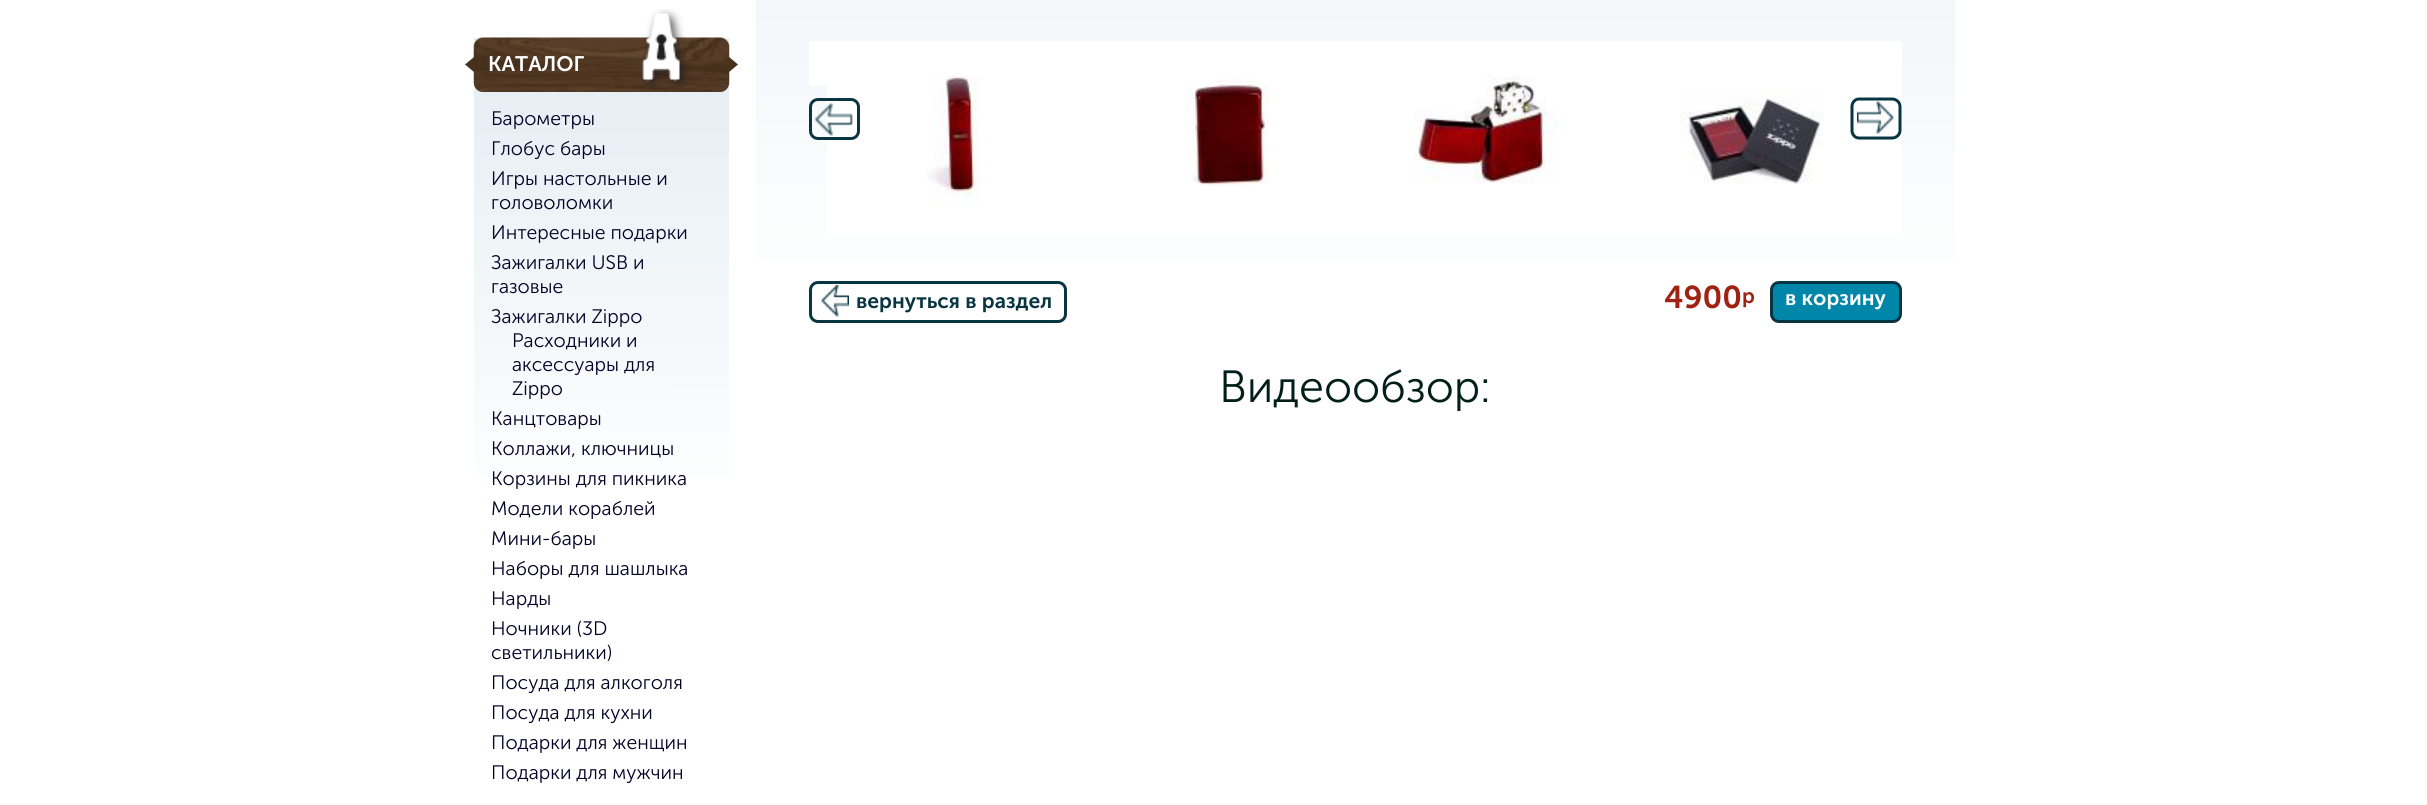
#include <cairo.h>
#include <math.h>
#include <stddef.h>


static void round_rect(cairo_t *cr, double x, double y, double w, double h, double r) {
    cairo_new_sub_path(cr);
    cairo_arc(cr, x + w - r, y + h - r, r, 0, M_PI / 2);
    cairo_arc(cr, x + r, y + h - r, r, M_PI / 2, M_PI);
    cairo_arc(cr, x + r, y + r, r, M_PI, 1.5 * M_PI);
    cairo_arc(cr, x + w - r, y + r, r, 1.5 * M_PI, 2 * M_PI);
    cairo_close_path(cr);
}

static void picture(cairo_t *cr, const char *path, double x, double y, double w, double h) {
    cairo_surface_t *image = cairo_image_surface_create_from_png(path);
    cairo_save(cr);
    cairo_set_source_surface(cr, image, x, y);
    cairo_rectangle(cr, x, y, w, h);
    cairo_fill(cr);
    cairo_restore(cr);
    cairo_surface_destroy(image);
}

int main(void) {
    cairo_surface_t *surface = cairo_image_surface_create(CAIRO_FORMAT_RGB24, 2427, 805);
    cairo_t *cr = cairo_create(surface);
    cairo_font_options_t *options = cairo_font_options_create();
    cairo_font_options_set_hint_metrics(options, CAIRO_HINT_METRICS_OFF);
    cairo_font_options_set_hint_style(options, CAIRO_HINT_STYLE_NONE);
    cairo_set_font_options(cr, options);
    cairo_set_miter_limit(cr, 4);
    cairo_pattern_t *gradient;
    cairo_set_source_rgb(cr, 1, 1, 1);
    cairo_paint(cr);
    gradient = cairo_pattern_create_linear(601, 38, 602, 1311);
    cairo_pattern_add_color_stop_rgba(gradient, 0, 0.894, 0.929, 0.953, 1);
    cairo_pattern_add_color_stop_rgba(gradient, 0.38, 1, 1, 1, 1);
    cairo_set_source(cr, gradient);
    cairo_pattern_destroy(gradient);
    cairo_rectangle(cr, 474, 38, 255, 439);
    cairo_fill(cr);
    cairo_set_source_rgb(cr, 0.31, 0.22, 0.137);
    round_rect(cr, 474, 38, 255, 54, 9);
    cairo_fill(cr);
    picture(cr, "img1.png", 473, 37, 257, 55);
    cairo_set_source_rgb(cr, 0.275, 0.192, 0.11);
    cairo_new_path(cr);
    cairo_move_to(cr, 474, 57);
    cairo_line_to(cr, 474, 72);
    cairo_line_to(cr, 465, 64.5);
    cairo_close_path(cr);
    cairo_fill(cr);
    cairo_select_font_face(cr, "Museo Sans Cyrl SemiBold", CAIRO_FONT_SLANT_NORMAL, CAIRO_FONT_WEIGHT_NORMAL);
    cairo_set_font_size(cr, 21);
    cairo_set_source_rgb(cr, 1, 1, 1);
    cairo_move_to(cr, 488, 71);
    cairo_show_text(cr, "КАТАЛОГ");
    picture(cr, "img2.png", 641, 9, 49, 78);
    cairo_set_source_rgb(cr, 0.275, 0.192, 0.11);
    cairo_new_path(cr);
    cairo_move_to(cr, 729, 72);
    cairo_line_to(cr, 729, 57);
    cairo_line_to(cr, 738, 64.5);
    cairo_close_path(cr);
    cairo_fill(cr);
    cairo_select_font_face(cr, "Museo Sans Cyrl Light", CAIRO_FONT_SLANT_NORMAL, CAIRO_FONT_WEIGHT_NORMAL);
    cairo_set_font_size(cr, 19.5);
    cairo_set_source_rgb(cr, 0.004, 0, 0.149);
    cairo_move_to(cr, 491, 125);
    cairo_show_text(cr, "Барометры");
    cairo_move_to(cr, 491, 155);
    cairo_show_text(cr, "Глобус бары");
    cairo_move_to(cr, 491, 185);
    cairo_show_text(cr, "Игры настольные и");
    cairo_move_to(cr, 491, 209);
    cairo_show_text(cr, "головоломки");
    cairo_move_to(cr, 491, 239);
    cairo_show_text(cr, "Интересные подарки");
    cairo_move_to(cr, 491, 269);
    cairo_show_text(cr, "Зажигалки USB и");
    cairo_move_to(cr, 491, 293);
    cairo_show_text(cr, "газовые");
    cairo_move_to(cr, 491, 323);
    cairo_show_text(cr, "Зажигалки Zippo");
    cairo_move_to(cr, 512, 347);
    cairo_show_text(cr, "Расходники и");
    cairo_move_to(cr, 512, 371);
    cairo_show_text(cr, "аксессуары для");
    cairo_move_to(cr, 512, 395);
    cairo_show_text(cr, "Zippo");
    cairo_move_to(cr, 491, 425);
    cairo_show_text(cr, "Канцтовары");
    cairo_move_to(cr, 491, 455);
    cairo_show_text(cr, "Коллажи, ключницы");
    cairo_move_to(cr, 491, 485);
    cairo_show_text(cr, "Корзины для пикника");
    cairo_move_to(cr, 491, 515);
    cairo_show_text(cr, "Модели кораблей");
    cairo_move_to(cr, 491, 545);
    cairo_show_text(cr, "Мини-бары");
    cairo_move_to(cr, 491, 575);
    cairo_show_text(cr, "Наборы для шашлыка");
    cairo_move_to(cr, 491, 605);
    cairo_show_text(cr, "Нарды");
    cairo_move_to(cr, 491, 635);
    cairo_show_text(cr, "Ночники (3D");
    cairo_move_to(cr, 491, 659);
    cairo_show_text(cr, "светильники)");
    cairo_move_to(cr, 491, 689);
    cairo_show_text(cr, "Посуда для алкоголя");
    cairo_move_to(cr, 491, 719);
    cairo_show_text(cr, "Посуда для кухни");
    cairo_move_to(cr, 491, 749);
    cairo_show_text(cr, "Подарки для женщин");
    cairo_move_to(cr, 491, 779);
    cairo_show_text(cr, "Подарки для мужчин");
    gradient = cairo_pattern_create_linear(1355, -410, 1355, 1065);
    cairo_pattern_add_color_stop_rgba(gradient, 0, 0.894, 0.929, 0.953, 1);
    cairo_pattern_add_color_stop_rgba(gradient, 0.5, 1, 1, 1, 1);
    cairo_set_source(cr, gradient);
    cairo_pattern_destroy(gradient);
    cairo_rectangle(cr, 756, 0, 1199, 259);
    cairo_fill(cr);
    cairo_set_source_rgb(cr, 1, 1, 1);
    cairo_rectangle(cr, 809, 41, 18, 45);
    cairo_fill(cr);
    cairo_rectangle(cr, 827, 41, 1075, 195);
    cairo_fill(cr);
    picture(cr, "img3.png", 927, 75, 53, 132);
    picture(cr, "img4.png", 1187, 77, 82, 109);
    picture(cr, "img5.png", 1414, 75, 144, 109);
    picture(cr, "img6.png", 1680, 87, 144, 97);
    picture(cr, "img7.png", 814, 103, 39, 33);
    round_rect(cr, 810.5, 99.5, 48, 39, 7.5);
    cairo_set_source_rgb(cr, 0.039, 0.208, 0.259);
    cairo_set_line_width(cr, 3);
    cairo_stroke(cr);
    picture(cr, "img8.png", 1857, 101, 38, 33);
    cairo_new_path(cr);
    cairo_move_to(cr, 1892, 138);
    cairo_line_to(cr, 1859, 138);
    cairo_curve_to(cr, 1855, 138, 1852, 134.5, 1852, 130.5);
    cairo_line_to(cr, 1852, 106.5);
    cairo_curve_to(cr, 1852, 102.5, 1855, 99, 1859, 99);
    cairo_line_to(cr, 1892, 99);
    cairo_curve_to(cr, 1896.5, 99, 1900, 102.5, 1900, 106.5);
    cairo_line_to(cr, 1900, 130.5);
    cairo_curve_to(cr, 1900, 134.5, 1896.5, 138, 1892, 138);
    cairo_close_path(cr);
    cairo_stroke(cr);
    round_rect(cr, 810.5, 282.5, 255, 39, 7.5);
    cairo_stroke(cr);
    picture(cr, "img9.png", 820, 285, 29, 32);
    cairo_select_font_face(cr, "Museo Sans Cyrl SemiBold", CAIRO_FONT_SLANT_NORMAL, CAIRO_FONT_WEIGHT_NORMAL);
    cairo_set_font_size(cr, 21);
    cairo_move_to(cr, 856, 308);
    cairo_show_text(cr, "вернуться в раздел");
    cairo_set_font_size(cr, 31.5);
    cairo_set_source_rgb(cr, 0.624, 0.133, 0.078);
    cairo_move_to(cr, 1664, 308);
    cairo_show_text(cr, "4900");
    cairo_set_font_size(cr, 21);
    cairo_move_to(cr, 1742, 303);
    cairo_show_text(cr, "р");
    cairo_set_source_rgb(cr, 0, 0.525, 0.663);
    round_rect(cr, 1771.5, 282.5, 129, 39, 7.5);
    cairo_fill_preserve(cr);
    cairo_set_source_rgb(cr, 0.039, 0.208, 0.259);
    cairo_stroke(cr);
    cairo_set_source_rgb(cr, 1, 1, 1);
    cairo_move_to(cr, 1785, 305);
    cairo_show_text(cr, "в корзину");
    cairo_select_font_face(cr, "Museo Sans Cyrl Light", CAIRO_FONT_SLANT_NORMAL, CAIRO_FONT_WEIGHT_NORMAL);
    cairo_set_font_size(cr, 45);
    cairo_set_source_rgb(cr, 0.004, 0.118, 0.106);
    cairo_move_to(cr, 1219, 402);
    cairo_show_text(cr, "Видеообзор:");
    cairo_surface_write_to_png(surface, "page.png");
    cairo_font_options_destroy(options);
    cairo_destroy(cr);
    cairo_surface_destroy(surface);
    return 0;
}
